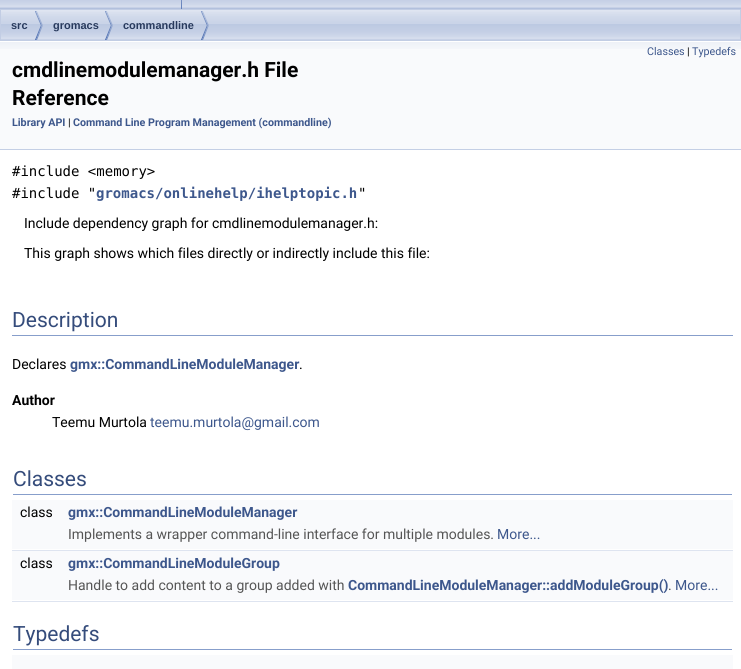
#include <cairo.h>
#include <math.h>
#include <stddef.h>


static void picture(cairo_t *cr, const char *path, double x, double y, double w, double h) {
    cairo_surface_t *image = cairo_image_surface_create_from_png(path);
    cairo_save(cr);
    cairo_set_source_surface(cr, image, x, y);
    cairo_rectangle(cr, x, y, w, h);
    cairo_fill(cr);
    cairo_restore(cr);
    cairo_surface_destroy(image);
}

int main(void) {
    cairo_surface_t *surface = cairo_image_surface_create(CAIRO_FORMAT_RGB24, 741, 669);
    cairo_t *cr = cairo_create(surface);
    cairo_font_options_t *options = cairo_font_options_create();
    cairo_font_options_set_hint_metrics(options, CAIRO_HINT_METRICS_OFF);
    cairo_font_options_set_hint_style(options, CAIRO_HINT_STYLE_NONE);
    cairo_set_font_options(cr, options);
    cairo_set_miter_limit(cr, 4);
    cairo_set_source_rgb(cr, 1, 1, 1);
    cairo_paint(cr);
    picture(cr, "img1.png", 0, 0, 741, 9);
    picture(cr, "img2.png", 181, 0, 1, 9);
    picture(cr, "img3.png", 1, 10, 739, 30);
    cairo_rectangle(cr, 0.5, 9.5, 740, 31);
    cairo_set_source_rgb(cr, 0.761, 0.804, 0.894);
    cairo_set_line_width(cr, 1);
    cairo_stroke(cr);
    picture(cr, "img4.png", 35, 11, 8, 29);
    cairo_select_font_face(cr, "Liberation Sans", CAIRO_FONT_SLANT_NORMAL, CAIRO_FONT_WEIGHT_BOLD);
    cairo_set_font_size(cr, 11);
    cairo_set_source_rgb(cr, 0.157, 0.227, 0.365);
    cairo_move_to(cr, 11, 29);
    cairo_show_text(cr, "src");
    picture(cr, "img4.png", 105, 11, 8, 29);
    cairo_move_to(cr, 53, 29);
    cairo_show_text(cr, "gromacs");
    picture(cr, "img4.png", 201, 11, 8, 29);
    cairo_move_to(cr, 123, 29);
    cairo_show_text(cr, "commandline");
    cairo_set_source_rgb(cr, 0.976, 0.98, 0.988);
    cairo_rectangle(cr, 0, 49, 741, 100);
    cairo_fill(cr);
    picture(cr, "img5.png", 0, 41, 741, 8);
    cairo_set_source_rgb(cr, 0.769, 0.812, 0.898);
    cairo_rectangle(cr, 0, 149, 741, 1);
    cairo_fill(cr);
    cairo_select_font_face(cr, "Roboto", CAIRO_FONT_SLANT_NORMAL, CAIRO_FONT_WEIGHT_NORMAL);
    cairo_set_font_size(cr, 10.7);
    cairo_set_source_rgb(cr, 0.239, 0.341, 0.549);
    cairo_move_to(cr, 647, 55);
    cairo_show_text(cr, "Classes");
    cairo_set_source_rgb(cr, 0, 0, 0);
    cairo_move_to(cr, 687, 55);
    cairo_show_text(cr, "|");
    cairo_set_source_rgb(cr, 0.239, 0.341, 0.549);
    cairo_move_to(cr, 692, 55);
    cairo_show_text(cr, "Typedefs");
    cairo_select_font_face(cr, "Roboto", CAIRO_FONT_SLANT_NORMAL, CAIRO_FONT_WEIGHT_BOLD);
    cairo_set_font_size(cr, 21);
    cairo_set_source_rgb(cr, 0, 0, 0);
    cairo_move_to(cr, 12, 77);
    cairo_show_text(cr, "cmdlinemodulemanager.h File");
    cairo_move_to(cr, 12, 105);
    cairo_show_text(cr, "Reference");
    cairo_set_font_size(cr, 10.7);
    cairo_set_source_rgb(cr, 0.239, 0.341, 0.549);
    cairo_move_to(cr, 12, 126);
    cairo_show_text(cr, "Library API");
    cairo_select_font_face(cr, "Roboto", CAIRO_FONT_SLANT_NORMAL, CAIRO_FONT_WEIGHT_NORMAL);
    cairo_set_source_rgb(cr, 0, 0, 0);
    cairo_move_to(cr, 68, 126);
    cairo_show_text(cr, "|");
    cairo_select_font_face(cr, "Roboto", CAIRO_FONT_SLANT_NORMAL, CAIRO_FONT_WEIGHT_BOLD);
    cairo_set_source_rgb(cr, 0.239, 0.341, 0.549);
    cairo_move_to(cr, 73, 126);
    cairo_show_text(cr, "Command Line Program Management (commandline)");
    cairo_select_font_face(cr, "DejaVu Sans Mono", CAIRO_FONT_SLANT_NORMAL, CAIRO_FONT_WEIGHT_NORMAL);
    cairo_set_font_size(cr, 14);
    cairo_set_source_rgb(cr, 0, 0, 0);
    cairo_move_to(cr, 12, 176);
    cairo_show_text(cr, "#include <memory>");
    cairo_move_to(cr, 12, 198);
    cairo_show_text(cr, "#include \"");
    cairo_select_font_face(cr, "DejaVu Sans Mono", CAIRO_FONT_SLANT_NORMAL, CAIRO_FONT_WEIGHT_BOLD);
    cairo_set_source_rgb(cr, 0.239, 0.341, 0.549);
    cairo_move_to(cr, 96, 198);
    cairo_show_text(cr, "gromacs/onlinehelp/ihelptopic.h");
    cairo_select_font_face(cr, "DejaVu Sans Mono", CAIRO_FONT_SLANT_NORMAL, CAIRO_FONT_WEIGHT_NORMAL);
    cairo_set_source_rgb(cr, 0, 0, 0);
    cairo_move_to(cr, 358, 198);
    cairo_show_text(cr, "\"");
    cairo_select_font_face(cr, "Roboto", CAIRO_FONT_SLANT_NORMAL, CAIRO_FONT_WEIGHT_NORMAL);
    cairo_move_to(cr, 24, 228);
    cairo_show_text(cr, "Include dependency graph for cmdlinemodulemanager.h:");
    cairo_move_to(cr, 24, 258);
    cairo_show_text(cr, "This graph shows which files directly or indirectly include this file:");
    cairo_set_source_rgb(cr, 0.529, 0.62, 0.796);
    cairo_rectangle(cr, 12, 335, 721, 1);
    cairo_fill(cr);
    cairo_set_font_size(cr, 21);
    cairo_set_source_rgb(cr, 0.208, 0.298, 0.482);
    cairo_move_to(cr, 12, 327);
    cairo_show_text(cr, "Description");
    cairo_set_font_size(cr, 14);
    cairo_set_source_rgb(cr, 0, 0, 0);
    cairo_move_to(cr, 12, 369);
    cairo_show_text(cr, "Declares");
    cairo_select_font_face(cr, "Roboto", CAIRO_FONT_SLANT_NORMAL, CAIRO_FONT_WEIGHT_BOLD);
    cairo_set_source_rgb(cr, 0.239, 0.341, 0.549);
    cairo_move_to(cr, 70, 369);
    cairo_show_text(cr, "gmx::CommandLineModuleManager");
    cairo_select_font_face(cr, "Roboto", CAIRO_FONT_SLANT_NORMAL, CAIRO_FONT_WEIGHT_NORMAL);
    cairo_set_source_rgb(cr, 0, 0, 0);
    cairo_move_to(cr, 299, 369);
    cairo_show_text(cr, ".");
    cairo_select_font_face(cr, "Roboto", CAIRO_FONT_SLANT_NORMAL, CAIRO_FONT_WEIGHT_BOLD);
    cairo_move_to(cr, 12, 405);
    cairo_show_text(cr, "Author");
    cairo_select_font_face(cr, "Roboto", CAIRO_FONT_SLANT_NORMAL, CAIRO_FONT_WEIGHT_NORMAL);
    cairo_move_to(cr, 52, 427);
    cairo_show_text(cr, "Teemu Murtola");
    cairo_set_source_rgb(cr, 0.239, 0.341, 0.549);
    cairo_move_to(cr, 150, 427);
    cairo_show_text(cr, "teemu.murtola@gmail.com");
    cairo_set_source_rgb(cr, 0.529, 0.62, 0.796);
    cairo_rectangle(cr, 13, 494, 719, 1);
    cairo_fill(cr);
    cairo_set_font_size(cr, 21);
    cairo_set_source_rgb(cr, 0.208, 0.298, 0.482);
    cairo_move_to(cr, 13, 486);
    cairo_show_text(cr, "Classes");
    cairo_set_source_rgb(cr, 0.976, 0.98, 0.988);
    cairo_rectangle(cr, 12, 500, 721, 23);
    cairo_fill(cr);
    cairo_set_font_size(cr, 14);
    cairo_set_source_rgb(cr, 0, 0, 0);
    cairo_move_to(cr, 20, 517);
    cairo_show_text(cr, "class");
    cairo_select_font_face(cr, "Roboto", CAIRO_FONT_SLANT_NORMAL, CAIRO_FONT_WEIGHT_BOLD);
    cairo_set_source_rgb(cr, 0.239, 0.341, 0.549);
    cairo_move_to(cr, 68, 517);
    cairo_show_text(cr, "gmx::CommandLineModuleManager");
    cairo_set_source_rgb(cr, 0.976, 0.98, 0.988);
    cairo_rectangle(cr, 12, 523, 721, 26);
    cairo_fill(cr);
    cairo_select_font_face(cr, "Roboto", CAIRO_FONT_SLANT_NORMAL, CAIRO_FONT_WEIGHT_NORMAL);
    cairo_set_source_rgb(cr, 0.333, 0.333, 0.333);
    cairo_move_to(cr, 68, 539);
    cairo_show_text(cr, "Implements a wrapper command-line interface for multiple modules.");
    cairo_set_source_rgb(cr, 0.239, 0.341, 0.549);
    cairo_move_to(cr, 497, 539);
    cairo_show_text(cr, "More...");
    cairo_set_source_rgb(cr, 0.871, 0.894, 0.941);
    cairo_rectangle(cr, 12, 550, 721, 1);
    cairo_fill(cr);
    cairo_set_source_rgb(cr, 0.976, 0.98, 0.988);
    cairo_rectangle(cr, 12, 551, 721, 23);
    cairo_fill(cr);
    cairo_set_source_rgb(cr, 0, 0, 0);
    cairo_move_to(cr, 20, 568);
    cairo_show_text(cr, "class");
    cairo_select_font_face(cr, "Roboto", CAIRO_FONT_SLANT_NORMAL, CAIRO_FONT_WEIGHT_BOLD);
    cairo_set_source_rgb(cr, 0.239, 0.341, 0.549);
    cairo_move_to(cr, 68, 568);
    cairo_show_text(cr, "gmx::CommandLineModuleGroup");
    cairo_set_source_rgb(cr, 0.976, 0.98, 0.988);
    cairo_rectangle(cr, 12, 574, 721, 26);
    cairo_fill(cr);
    cairo_select_font_face(cr, "Roboto", CAIRO_FONT_SLANT_NORMAL, CAIRO_FONT_WEIGHT_NORMAL);
    cairo_set_source_rgb(cr, 0.333, 0.333, 0.333);
    cairo_move_to(cr, 68, 590);
    cairo_show_text(cr, "Handle to add content to a group added with");
    cairo_select_font_face(cr, "Roboto", CAIRO_FONT_SLANT_NORMAL, CAIRO_FONT_WEIGHT_BOLD);
    cairo_set_source_rgb(cr, 0.239, 0.341, 0.549);
    cairo_move_to(cr, 348, 590);
    cairo_show_text(cr, "CommandLineModuleManager::addModuleGroup()");
    cairo_select_font_face(cr, "Roboto", CAIRO_FONT_SLANT_NORMAL, CAIRO_FONT_WEIGHT_NORMAL);
    cairo_set_source_rgb(cr, 0.333, 0.333, 0.333);
    cairo_move_to(cr, 668, 590);
    cairo_show_text(cr, ".");
    cairo_set_source_rgb(cr, 0.239, 0.341, 0.549);
    cairo_move_to(cr, 675, 590);
    cairo_show_text(cr, "More...");
    cairo_set_source_rgb(cr, 0.871, 0.894, 0.941);
    cairo_rectangle(cr, 12, 601, 721, 1);
    cairo_fill(cr);
    cairo_set_source_rgb(cr, 0.529, 0.62, 0.796);
    cairo_rectangle(cr, 13, 649, 719, 1);
    cairo_fill(cr);
    cairo_set_font_size(cr, 21);
    cairo_set_source_rgb(cr, 0.208, 0.298, 0.482);
    cairo_move_to(cr, 13, 641);
    cairo_show_text(cr, "Typedefs");
    cairo_set_source_rgb(cr, 0.976, 0.98, 0.988);
    cairo_rectangle(cr, 12, 655, 721, 14);
    cairo_fill(cr);
    cairo_surface_write_to_png(surface, "page.png");
    cairo_font_options_destroy(options);
    cairo_destroy(cr);
    cairo_surface_destroy(surface);
    return 0;
}
